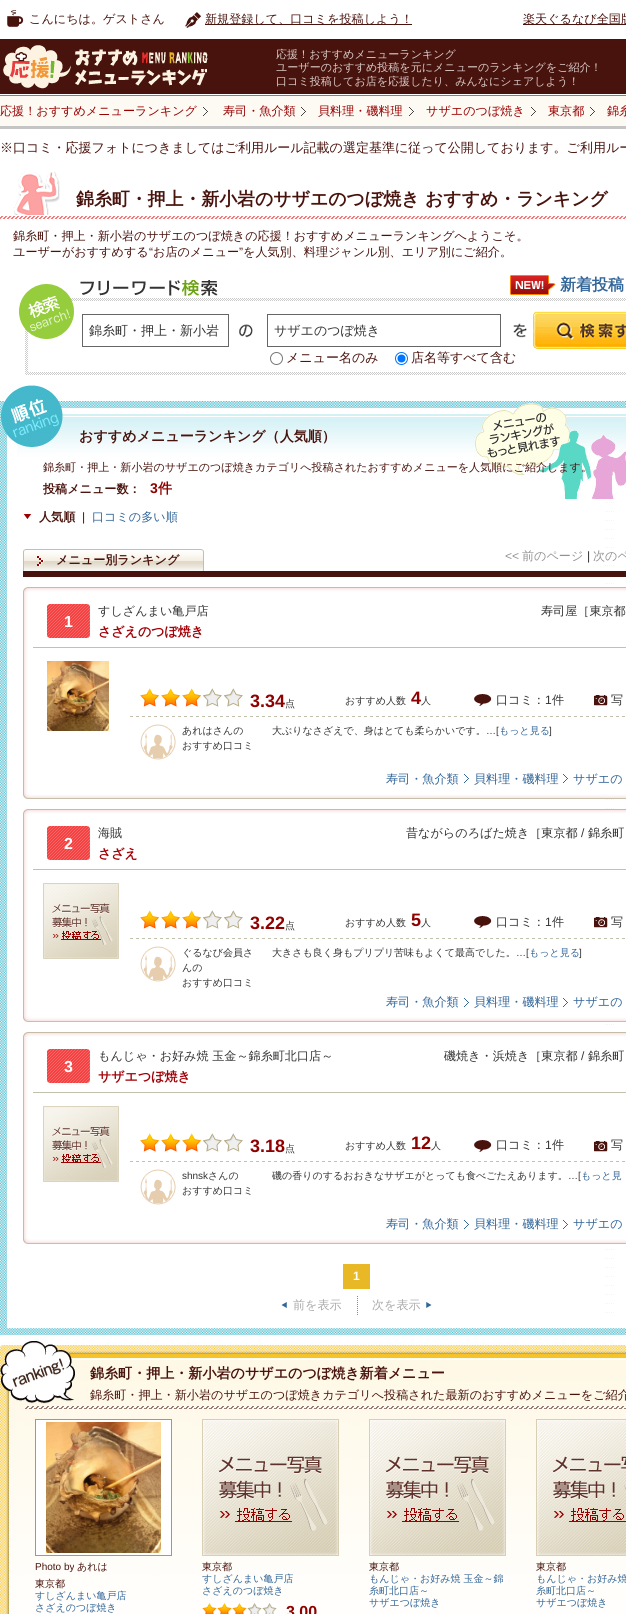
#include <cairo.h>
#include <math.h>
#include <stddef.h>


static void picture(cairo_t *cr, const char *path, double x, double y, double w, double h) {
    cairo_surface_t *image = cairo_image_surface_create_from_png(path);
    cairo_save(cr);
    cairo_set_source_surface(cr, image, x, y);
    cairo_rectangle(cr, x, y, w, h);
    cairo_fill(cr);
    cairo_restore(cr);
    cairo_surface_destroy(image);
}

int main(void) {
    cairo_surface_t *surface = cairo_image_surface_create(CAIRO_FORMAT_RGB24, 626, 1614);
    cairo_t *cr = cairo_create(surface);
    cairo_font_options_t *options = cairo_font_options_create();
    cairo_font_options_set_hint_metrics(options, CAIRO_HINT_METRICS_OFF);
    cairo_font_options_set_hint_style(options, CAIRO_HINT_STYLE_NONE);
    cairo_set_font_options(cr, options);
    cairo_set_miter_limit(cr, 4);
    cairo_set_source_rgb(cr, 1, 1, 1);
    cairo_paint(cr);
    picture(cr, "img1.png", 7, 10, 17, 17);
    cairo_select_font_face(cr, "WenQuanYi Zen Hei Medium", CAIRO_FONT_SLANT_NORMAL, CAIRO_FONT_WEIGHT_NORMAL);
    cairo_set_font_size(cr, 12.1);
    cairo_set_source_rgb(cr, 0.286, 0.075, 0.051);
    cairo_move_to(cr, 29, 23);
    cairo_show_text(cr, "こんにちは。ゲストさん");
    picture(cr, "img2.png", 185, 12, 16, 16);
    cairo_rectangle(cr, 205, 24, 207, 1);
    cairo_fill(cr);
    cairo_move_to(cr, 205, 23);
    cairo_show_text(cr, "新規登録して、口コミを投稿しよう！");
    cairo_rectangle(cr, 523, 24, 103, 1);
    cairo_fill(cr);
    cairo_move_to(cr, 523, 23);
    cairo_show_text(cr, "楽天ぐるなび全国版");
    cairo_rectangle(cr, 0, 39, 626, 55);
    cairo_fill(cr);
    picture(cr, "img3.png", 3, 45, 205, 44);
    cairo_set_font_size(cr, 11.05);
    cairo_set_source_rgb(cr, 0.855, 0.796, 0.788);
    cairo_move_to(cr, 276, 58);
    cairo_show_text(cr, "応援！おすすめメニューランキング");
    cairo_move_to(cr, 276, 71);
    cairo_show_text(cr, "ユーザーのおすすめ投稿を元にメニューのランキングをご紹介！");
    cairo_move_to(cr, 276, 85);
    cairo_show_text(cr, "口コミ投稿してお店を応援したり、みんなにシェアしよう！");
    cairo_set_source_rgb(cr, 0.992, 0.98, 0.957);
    cairo_rectangle(cr, 0, 96, 626, 30);
    cairo_fill(cr);
    cairo_set_source_rgb(cr, 0.773, 0.773, 0.773);
    cairo_rectangle(cr, 0, 126, 626, 3);
    cairo_fill(cr);
    cairo_set_source_rgb(cr, 0.502, 0.502, 0.502);
    cairo_rectangle(cr, 0, 95, 626, 1);
    cairo_fill(cr);
    cairo_set_font_size(cr, 12.1);
    cairo_set_source_rgb(cr, 0.6, 0, 0);
    cairo_move_to(cr, 0, 115);
    cairo_show_text(cr, "応援！おすすめメニューランキング");
    picture(cr, "img4.png", 203, 107, 5, 9);
    cairo_move_to(cr, 223, 115);
    cairo_show_text(cr, "寿司・魚介類");
    picture(cr, "img4.png", 301, 107, 5, 9);
    cairo_move_to(cr, 318, 115);
    cairo_show_text(cr, "貝料理・磯料理");
    picture(cr, "img4.png", 409, 107, 5, 9);
    cairo_move_to(cr, 426, 115);
    cairo_show_text(cr, "サザエのつぼ焼き");
    picture(cr, "img4.png", 531, 107, 5, 9);
    cairo_move_to(cr, 548, 115);
    cairo_show_text(cr, "東京都");
    picture(cr, "img4.png", 590, 107, 5, 9);
    cairo_move_to(cr, 607, 115);
    cairo_show_text(cr, "錦糸");
    cairo_set_font_size(cr, 13);
    cairo_set_source_rgb(cr, 0.286, 0.075, 0.051);
    cairo_move_to(cr, 0, 152);
    cairo_show_text(cr, "※口コミ・応援フォトにつきましてはご利用ルール記載の選定基準に従って公開しております。ご利用ルー");
    picture(cr, "img5.png", 0, 216, 626, 3);
    picture(cr, "img6.png", 14, 172, 46, 43);
    cairo_select_font_face(cr, "WenQuanYi Zen Hei", CAIRO_FONT_SLANT_NORMAL, CAIRO_FONT_WEIGHT_BOLD);
    cairo_set_font_size(cr, 17.9);
    cairo_move_to(cr, 76, 205);
    cairo_show_text(cr, "錦糸町・押上・新小岩のサザエのつぼ焼き");
    cairo_move_to(cr, 425, 205);
    cairo_show_text(cr, "おすすめ・ランキング");
    cairo_select_font_face(cr, "WenQuanYi Zen Hei Medium", CAIRO_FONT_SLANT_NORMAL, CAIRO_FONT_WEIGHT_NORMAL);
    cairo_set_font_size(cr, 12.1);
    cairo_move_to(cr, 13, 240);
    cairo_show_text(cr, "錦糸町・押上・新小岩のサザエのつぼ焼きの応援！おすすめメニューランキングへようこそ。");
    cairo_move_to(cr, 13, 256);
    cairo_show_text(cr, "ユーザーがおすすめする");
    cairo_select_font_face(cr, "Liberation Sans", CAIRO_FONT_SLANT_NORMAL, CAIRO_FONT_WEIGHT_NORMAL);
    cairo_move_to(cr, 149, 256);
    cairo_show_text(cr, "“");
    cairo_select_font_face(cr, "WenQuanYi Zen Hei Medium", CAIRO_FONT_SLANT_NORMAL, CAIRO_FONT_WEIGHT_NORMAL);
    cairo_move_to(cr, 153, 256);
    cairo_show_text(cr, "お店のメニュー");
    cairo_select_font_face(cr, "Liberation Sans", CAIRO_FONT_SLANT_NORMAL, CAIRO_FONT_WEIGHT_NORMAL);
    cairo_move_to(cr, 239, 256);
    cairo_show_text(cr, "”");
    cairo_select_font_face(cr, "WenQuanYi Zen Hei Medium", CAIRO_FONT_SLANT_NORMAL, CAIRO_FONT_WEIGHT_NORMAL);
    cairo_move_to(cr, 243, 256);
    cairo_show_text(cr, "を人気別、料理ジャンル別、エリア別にご紹介。");
    picture(cr, "img7.png", 19, 298, 607, 77);
    picture(cr, "img8.png", 22, 280, 196, 18);
    picture(cr, "img9.png", 510, 275, 46, 20);
    cairo_select_font_face(cr, "WenQuanYi Zen Hei", CAIRO_FONT_SLANT_NORMAL, CAIRO_FONT_WEIGHT_BOLD);
    cairo_set_font_size(cr, 16);
    cairo_set_source_rgb(cr, 0.2, 0.4, 0.6);
    cairo_move_to(cr, 560, 290);
    cairo_show_text(cr, "新着投稿");
    cairo_rectangle(cr, 82.5, 314.5, 146, 32);
    cairo_set_source_rgb(cr, 0.4, 0.4, 0.4);
    cairo_set_line_width(cr, 1);
    cairo_stroke(cr);
    cairo_select_font_face(cr, "WenQuanYi Zen Hei Medium", CAIRO_FONT_SLANT_NORMAL, CAIRO_FONT_WEIGHT_NORMAL);
    cairo_set_font_size(cr, 13);
    cairo_set_source_rgb(cr, 0.2, 0.2, 0.2);
    cairo_move_to(cr, 89, 335);
    cairo_show_text(cr, "錦糸町・押上・新小岩");
    cairo_rectangle(cr, 267.5, 314.5, 233, 32);
    cairo_set_source_rgb(cr, 0.4, 0.4, 0.4);
    cairo_stroke(cr);
    cairo_set_source_rgb(cr, 0.2, 0.2, 0.2);
    cairo_move_to(cr, 274, 335);
    cairo_show_text(cr, "サザエのつぼ焼き");
    picture(cr, "img10.png", 533, 311, 93, 38);
    cairo_arc(cr, 276.5, 358.5, 6, 0, 2 * M_PI);
    cairo_set_source_rgb(cr, 0.463, 0.463, 0.463);
    cairo_stroke(cr);
    cairo_set_source_rgb(cr, 0.286, 0.075, 0.051);
    cairo_move_to(cr, 286, 362);
    cairo_show_text(cr, "メニュー名のみ");
    cairo_new_path(cr);
    cairo_arc(cr, 401.5, 358.5, 6, 0, 2 * M_PI);
    cairo_set_source_rgb(cr, 0, 0.459, 1);
    cairo_stroke(cr);
    cairo_arc(cr, 401.5, 358.5, 4, 0, 2 * M_PI);
    cairo_fill(cr);
    cairo_set_source_rgb(cr, 0.286, 0.075, 0.051);
    cairo_move_to(cr, 411, 362);
    cairo_show_text(cr, "店名等すべて含む");
    picture(cr, "img11.png", 0, 499, 614, 821);
    picture(cr, "img12.png", 0, 385, 626, 114);
    picture(cr, "img13.png", 0, 1320, 626, 15);
    cairo_select_font_face(cr, "WenQuanYi Zen Hei", CAIRO_FONT_SLANT_NORMAL, CAIRO_FONT_WEIGHT_BOLD);
    cairo_set_font_size(cr, 14.05);
    cairo_move_to(cr, 79, 441);
    cairo_show_text(cr, "おすすめメニューランキング（人気順）");
    cairo_select_font_face(cr, "WenQuanYi Zen Hei Medium", CAIRO_FONT_SLANT_NORMAL, CAIRO_FONT_WEIGHT_NORMAL);
    cairo_set_font_size(cr, 11.05);
    cairo_move_to(cr, 43, 471);
    cairo_show_text(cr, "錦糸町・押上・新小岩のサザエのつぼ焼きカテゴリへ投稿されたおすすめメニューを人気順にご紹介します。");
    cairo_select_font_face(cr, "WenQuanYi Zen Hei", CAIRO_FONT_SLANT_NORMAL, CAIRO_FONT_WEIGHT_BOLD);
    cairo_set_font_size(cr, 12.1);
    cairo_move_to(cr, 43, 493);
    cairo_show_text(cr, "投稿メニュー数：");
    cairo_select_font_face(cr, "Liberation Sans", CAIRO_FONT_SLANT_NORMAL, CAIRO_FONT_WEIGHT_BOLD);
    cairo_set_font_size(cr, 14.05);
    cairo_set_source_rgb(cr, 0.561, 0.004, 0);
    cairo_move_to(cr, 150, 493);
    cairo_show_text(cr, "3");
    cairo_select_font_face(cr, "WenQuanYi Zen Hei", CAIRO_FONT_SLANT_NORMAL, CAIRO_FONT_WEIGHT_BOLD);
    cairo_move_to(cr, 158, 493);
    cairo_show_text(cr, "件");
    picture(cr, "img14.png", 23, 514, 9, 5);
    cairo_set_font_size(cr, 12.1);
    cairo_set_source_rgb(cr, 0.286, 0.075, 0.051);
    cairo_move_to(cr, 39, 521);
    cairo_show_text(cr, "人気順");
    cairo_select_font_face(cr, "Liberation Sans", CAIRO_FONT_SLANT_NORMAL, CAIRO_FONT_WEIGHT_NORMAL);
    cairo_move_to(cr, 82, 521);
    cairo_show_text(cr, "|");
    cairo_select_font_face(cr, "WenQuanYi Zen Hei Medium", CAIRO_FONT_SLANT_NORMAL, CAIRO_FONT_WEIGHT_NORMAL);
    cairo_set_source_rgb(cr, 0.2, 0.4, 0.6);
    cairo_move_to(cr, 92, 521);
    cairo_show_text(cr, "口コミの多い順");
    cairo_set_source_rgb(cr, 0.286, 0.075, 0.051);
    cairo_rectangle(cr, 23, 571, 603, 6);
    cairo_fill(cr);
    picture(cr, "img15.png", 23, 549, 181, 22);
    cairo_select_font_face(cr, "WenQuanYi Zen Hei", CAIRO_FONT_SLANT_NORMAL, CAIRO_FONT_WEIGHT_BOLD);
    cairo_move_to(cr, 56, 564);
    cairo_show_text(cr, "メニュー別ランキング");
    cairo_select_font_face(cr, "Liberation Sans", CAIRO_FONT_SLANT_NORMAL, CAIRO_FONT_WEIGHT_NORMAL);
    cairo_set_source_rgb(cr, 0.576, 0.576, 0.576);
    cairo_move_to(cr, 505, 560);
    cairo_show_text(cr, "<<");
    cairo_select_font_face(cr, "WenQuanYi Zen Hei Medium", CAIRO_FONT_SLANT_NORMAL, CAIRO_FONT_WEIGHT_NORMAL);
    cairo_move_to(cr, 522, 560);
    cairo_show_text(cr, "前のページ");
    cairo_select_font_face(cr, "Liberation Sans", CAIRO_FONT_SLANT_NORMAL, CAIRO_FONT_WEIGHT_NORMAL);
    cairo_set_source_rgb(cr, 0.2, 0.2, 0.2);
    cairo_move_to(cr, 587, 560);
    cairo_show_text(cr, "|");
    cairo_select_font_face(cr, "WenQuanYi Zen Hei Medium", CAIRO_FONT_SLANT_NORMAL, CAIRO_FONT_WEIGHT_NORMAL);
    cairo_set_source_rgb(cr, 0.576, 0.576, 0.576);
    cairo_move_to(cr, 593, 560);
    cairo_show_text(cr, "次のペ");
    picture(cr, "img16.png", 23, 592, 603, 207);
    picture(cr, "img17.png", 23, 587, 603, 5);
    cairo_set_source_rgb(cr, 0.761, 0.757, 0.678);
    cairo_rectangle(cr, 33, 647, 593, 1);
    cairo_fill(cr);
    cairo_set_source_rgb(cr, 0.2, 0.2, 0.2);
    cairo_move_to(cr, 98, 615);
    cairo_show_text(cr, "すしざんまい亀戸店");
    cairo_move_to(cr, 541, 615);
    cairo_show_text(cr, "寿司屋［東京都");
    picture(cr, "img18.png", 47, 604, 43, 34);
    cairo_select_font_face(cr, "Liberation Sans", CAIRO_FONT_SLANT_NORMAL, CAIRO_FONT_WEIGHT_BOLD);
    cairo_set_font_size(cr, 16);
    cairo_set_source_rgb(cr, 1, 1, 1);
    cairo_move_to(cr, 64, 627);
    cairo_show_text(cr, "1");
    cairo_select_font_face(cr, "WenQuanYi Zen Hei", CAIRO_FONT_SLANT_NORMAL, CAIRO_FONT_WEIGHT_BOLD);
    cairo_set_font_size(cr, 13);
    cairo_set_source_rgb(cr, 0.635, 0, 0.027);
    cairo_move_to(cr, 98, 636);
    cairo_show_text(cr, "さざえのつぼ焼き");
    picture(cr, "img19.png", 47, 661, 62, 70);
    picture(cr, "img20.png", 130, 716, 495, 1);
    picture(cr, "img21.png", 140, 688, 20, 19);
    picture(cr, "img21.png", 161, 688, 20, 19);
    picture(cr, "img21.png", 182, 688, 20, 19);
    picture(cr, "img22.png", 203, 688, 19, 19);
    picture(cr, "img22.png", 224, 688, 19, 19);
    cairo_select_font_face(cr, "Liberation Sans", CAIRO_FONT_SLANT_NORMAL, CAIRO_FONT_WEIGHT_BOLD);
    cairo_set_font_size(cr, 17.9);
    cairo_set_source_rgb(cr, 0.561, 0.004, 0);
    cairo_move_to(cr, 250, 707);
    cairo_show_text(cr, "3.34");
    cairo_select_font_face(cr, "WenQuanYi Zen Hei Medium", CAIRO_FONT_SLANT_NORMAL, CAIRO_FONT_WEIGHT_NORMAL);
    cairo_set_font_size(cr, 10);
    cairo_set_source_rgb(cr, 0.2, 0.2, 0.2);
    cairo_move_to(cr, 285, 707);
    cairo_show_text(cr, "点");
    cairo_move_to(cr, 345, 704);
    cairo_show_text(cr, "おすすめ人数");
    cairo_select_font_face(cr, "Liberation Sans", CAIRO_FONT_SLANT_NORMAL, CAIRO_FONT_WEIGHT_BOLD);
    cairo_set_font_size(cr, 18);
    cairo_set_source_rgb(cr, 0.561, 0.004, 0);
    cairo_move_to(cr, 411, 704);
    cairo_show_text(cr, "4");
    cairo_select_font_face(cr, "WenQuanYi Zen Hei Medium", CAIRO_FONT_SLANT_NORMAL, CAIRO_FONT_WEIGHT_NORMAL);
    cairo_set_font_size(cr, 10);
    cairo_set_source_rgb(cr, 0.2, 0.2, 0.2);
    cairo_move_to(cr, 421, 704);
    cairo_show_text(cr, "人");
    picture(cr, "img23.png", 474, 694, 18, 12);
    cairo_set_font_size(cr, 12.1);
    cairo_move_to(cr, 496, 704);
    cairo_show_text(cr, "口コミ：");
    cairo_select_font_face(cr, "Liberation Sans", CAIRO_FONT_SLANT_NORMAL, CAIRO_FONT_WEIGHT_NORMAL);
    cairo_move_to(cr, 545, 704);
    cairo_show_text(cr, "1");
    cairo_select_font_face(cr, "WenQuanYi Zen Hei Medium", CAIRO_FONT_SLANT_NORMAL, CAIRO_FONT_WEIGHT_NORMAL);
    cairo_move_to(cr, 552, 704);
    cairo_show_text(cr, "件");
    picture(cr, "img24.png", 594, 695, 14, 11);
    cairo_move_to(cr, 611, 704);
    cairo_show_text(cr, "写");
    picture(cr, "img25.png", 140, 724, 36, 36);
    cairo_set_font_size(cr, 10);
    cairo_move_to(cr, 182, 734);
    cairo_show_text(cr, "あれはさんの");
    cairo_move_to(cr, 182, 749);
    cairo_show_text(cr, "おすすめ口コミ");
    cairo_move_to(cr, 272, 734);
    cairo_show_text(cr, "大ぶりなさざえで、身はとても柔らかいです。");
    cairo_select_font_face(cr, "Liberation Sans", CAIRO_FONT_SLANT_NORMAL, CAIRO_FONT_WEIGHT_NORMAL);
    cairo_move_to(cr, 486, 734);
    cairo_show_text(cr, "…[");
    cairo_select_font_face(cr, "WenQuanYi Zen Hei Medium", CAIRO_FONT_SLANT_NORMAL, CAIRO_FONT_WEIGHT_NORMAL);
    cairo_set_source_rgb(cr, 0.2, 0.4, 0.6);
    cairo_move_to(cr, 499, 734);
    cairo_show_text(cr, "もっと見る");
    cairo_select_font_face(cr, "Liberation Sans", CAIRO_FONT_SLANT_NORMAL, CAIRO_FONT_WEIGHT_NORMAL);
    cairo_set_source_rgb(cr, 0.2, 0.2, 0.2);
    cairo_move_to(cr, 549, 734);
    cairo_show_text(cr, "]");
    cairo_select_font_face(cr, "WenQuanYi Zen Hei Medium", CAIRO_FONT_SLANT_NORMAL, CAIRO_FONT_WEIGHT_NORMAL);
    cairo_set_font_size(cr, 12.1);
    cairo_set_source_rgb(cr, 0.2, 0.4, 0.6);
    cairo_move_to(cr, 386, 783);
    cairo_show_text(cr, "寿司・魚介類");
    picture(cr, "img26.png", 464, 774, 5, 9);
    cairo_move_to(cr, 474, 783);
    cairo_show_text(cr, "貝料理・磯料理");
    picture(cr, "img26.png", 563, 774, 5, 9);
    cairo_move_to(cr, 573, 783);
    cairo_show_text(cr, "サザエの");
    picture(cr, "img27.png", 23, 814, 603, 208);
    picture(cr, "img17.png", 23, 809, 603, 5);
    cairo_set_source_rgb(cr, 0.761, 0.757, 0.678);
    cairo_rectangle(cr, 33, 869, 593, 1);
    cairo_fill(cr);
    cairo_set_source_rgb(cr, 0.2, 0.2, 0.2);
    cairo_move_to(cr, 98, 837);
    cairo_show_text(cr, "海賊");
    cairo_move_to(cr, 406, 837);
    cairo_show_text(cr, "昔ながらのろばた焼き［東京都");
    cairo_select_font_face(cr, "Liberation Sans", CAIRO_FONT_SLANT_NORMAL, CAIRO_FONT_WEIGHT_NORMAL);
    cairo_move_to(cr, 581, 837);
    cairo_show_text(cr, "/");
    cairo_select_font_face(cr, "WenQuanYi Zen Hei Medium", CAIRO_FONT_SLANT_NORMAL, CAIRO_FONT_WEIGHT_NORMAL);
    cairo_move_to(cr, 588, 837);
    cairo_show_text(cr, "錦糸町");
    picture(cr, "img18.png", 47, 826, 43, 34);
    cairo_select_font_face(cr, "Liberation Sans", CAIRO_FONT_SLANT_NORMAL, CAIRO_FONT_WEIGHT_BOLD);
    cairo_set_font_size(cr, 16);
    cairo_set_source_rgb(cr, 1, 1, 1);
    cairo_move_to(cr, 64, 849);
    cairo_show_text(cr, "2");
    cairo_select_font_face(cr, "WenQuanYi Zen Hei", CAIRO_FONT_SLANT_NORMAL, CAIRO_FONT_WEIGHT_BOLD);
    cairo_set_font_size(cr, 13);
    cairo_set_source_rgb(cr, 0.635, 0, 0.027);
    cairo_move_to(cr, 98, 858);
    cairo_show_text(cr, "さざえ");
    picture(cr, "img28.png", 43, 883, 76, 76);
    picture(cr, "img20.png", 130, 938, 495, 1);
    picture(cr, "img21.png", 140, 910, 20, 19);
    picture(cr, "img21.png", 161, 910, 20, 19);
    picture(cr, "img21.png", 182, 910, 20, 19);
    picture(cr, "img22.png", 203, 910, 19, 19);
    picture(cr, "img22.png", 224, 910, 19, 19);
    cairo_select_font_face(cr, "Liberation Sans", CAIRO_FONT_SLANT_NORMAL, CAIRO_FONT_WEIGHT_BOLD);
    cairo_set_font_size(cr, 17.9);
    cairo_set_source_rgb(cr, 0.561, 0.004, 0);
    cairo_move_to(cr, 250, 929);
    cairo_show_text(cr, "3.22");
    cairo_select_font_face(cr, "WenQuanYi Zen Hei Medium", CAIRO_FONT_SLANT_NORMAL, CAIRO_FONT_WEIGHT_NORMAL);
    cairo_set_font_size(cr, 10);
    cairo_set_source_rgb(cr, 0.2, 0.2, 0.2);
    cairo_move_to(cr, 285, 929);
    cairo_show_text(cr, "点");
    cairo_move_to(cr, 345, 926);
    cairo_show_text(cr, "おすすめ人数");
    cairo_select_font_face(cr, "Liberation Sans", CAIRO_FONT_SLANT_NORMAL, CAIRO_FONT_WEIGHT_BOLD);
    cairo_set_font_size(cr, 18);
    cairo_set_source_rgb(cr, 0.561, 0.004, 0);
    cairo_move_to(cr, 411, 926);
    cairo_show_text(cr, "5");
    cairo_select_font_face(cr, "WenQuanYi Zen Hei Medium", CAIRO_FONT_SLANT_NORMAL, CAIRO_FONT_WEIGHT_NORMAL);
    cairo_set_font_size(cr, 10);
    cairo_set_source_rgb(cr, 0.2, 0.2, 0.2);
    cairo_move_to(cr, 421, 926);
    cairo_show_text(cr, "人");
    picture(cr, "img23.png", 474, 916, 18, 12);
    cairo_set_font_size(cr, 12.1);
    cairo_move_to(cr, 496, 926);
    cairo_show_text(cr, "口コミ：");
    cairo_select_font_face(cr, "Liberation Sans", CAIRO_FONT_SLANT_NORMAL, CAIRO_FONT_WEIGHT_NORMAL);
    cairo_move_to(cr, 545, 926);
    cairo_show_text(cr, "1");
    cairo_select_font_face(cr, "WenQuanYi Zen Hei Medium", CAIRO_FONT_SLANT_NORMAL, CAIRO_FONT_WEIGHT_NORMAL);
    cairo_move_to(cr, 552, 926);
    cairo_show_text(cr, "件");
    picture(cr, "img24.png", 594, 917, 14, 11);
    cairo_move_to(cr, 611, 926);
    cairo_show_text(cr, "写");
    picture(cr, "img25.png", 140, 946, 36, 36);
    cairo_set_font_size(cr, 10);
    cairo_move_to(cr, 182, 956);
    cairo_show_text(cr, "ぐるなび会員さ");
    cairo_move_to(cr, 182, 971);
    cairo_show_text(cr, "んの");
    cairo_move_to(cr, 182, 986);
    cairo_show_text(cr, "おすすめ口コミ");
    cairo_move_to(cr, 272, 956);
    cairo_show_text(cr, "大きさも良く身もプリプリ苦味もよくて最高でした。");
    cairo_select_font_face(cr, "Liberation Sans", CAIRO_FONT_SLANT_NORMAL, CAIRO_FONT_WEIGHT_NORMAL);
    cairo_move_to(cr, 516, 956);
    cairo_show_text(cr, "…[");
    cairo_select_font_face(cr, "WenQuanYi Zen Hei Medium", CAIRO_FONT_SLANT_NORMAL, CAIRO_FONT_WEIGHT_NORMAL);
    cairo_set_source_rgb(cr, 0.2, 0.4, 0.6);
    cairo_move_to(cr, 529, 956);
    cairo_show_text(cr, "もっと見る");
    cairo_select_font_face(cr, "Liberation Sans", CAIRO_FONT_SLANT_NORMAL, CAIRO_FONT_WEIGHT_NORMAL);
    cairo_set_source_rgb(cr, 0.2, 0.2, 0.2);
    cairo_move_to(cr, 579, 956);
    cairo_show_text(cr, "]");
    cairo_select_font_face(cr, "WenQuanYi Zen Hei Medium", CAIRO_FONT_SLANT_NORMAL, CAIRO_FONT_WEIGHT_NORMAL);
    cairo_set_font_size(cr, 12.1);
    cairo_set_source_rgb(cr, 0.2, 0.4, 0.6);
    cairo_move_to(cr, 386, 1006);
    cairo_show_text(cr, "寿司・魚介類");
    picture(cr, "img26.png", 464, 998, 5, 9);
    cairo_move_to(cr, 474, 1006);
    cairo_show_text(cr, "貝料理・磯料理");
    picture(cr, "img26.png", 563, 998, 5, 9);
    cairo_move_to(cr, 573, 1006);
    cairo_show_text(cr, "サザエの");
    picture(cr, "img16.png", 23, 1037, 603, 207);
    picture(cr, "img17.png", 23, 1032, 603, 5);
    cairo_set_source_rgb(cr, 0.761, 0.757, 0.678);
    cairo_rectangle(cr, 33, 1092, 593, 1);
    cairo_fill(cr);
    cairo_set_source_rgb(cr, 0.2, 0.2, 0.2);
    cairo_move_to(cr, 98, 1060);
    cairo_show_text(cr, "もんじゃ・お好み焼 玉金～錦糸町北口店～");
    cairo_move_to(cr, 444, 1060);
    cairo_show_text(cr, "磯焼き・浜焼き［東京都");
    cairo_select_font_face(cr, "Liberation Sans", CAIRO_FONT_SLANT_NORMAL, CAIRO_FONT_WEIGHT_NORMAL);
    cairo_move_to(cr, 581, 1060);
    cairo_show_text(cr, "/");
    cairo_select_font_face(cr, "WenQuanYi Zen Hei Medium", CAIRO_FONT_SLANT_NORMAL, CAIRO_FONT_WEIGHT_NORMAL);
    cairo_move_to(cr, 588, 1060);
    cairo_show_text(cr, "錦糸町");
    picture(cr, "img18.png", 47, 1049, 43, 34);
    cairo_select_font_face(cr, "Liberation Sans", CAIRO_FONT_SLANT_NORMAL, CAIRO_FONT_WEIGHT_BOLD);
    cairo_set_font_size(cr, 16);
    cairo_set_source_rgb(cr, 1, 1, 1);
    cairo_move_to(cr, 64, 1072);
    cairo_show_text(cr, "3");
    cairo_select_font_face(cr, "WenQuanYi Zen Hei", CAIRO_FONT_SLANT_NORMAL, CAIRO_FONT_WEIGHT_BOLD);
    cairo_set_font_size(cr, 13);
    cairo_set_source_rgb(cr, 0.635, 0, 0.027);
    cairo_move_to(cr, 98, 1081);
    cairo_show_text(cr, "サザエつぼ焼き");
    picture(cr, "img28.png", 43, 1106, 76, 76);
    picture(cr, "img20.png", 130, 1161, 495, 1);
    picture(cr, "img21.png", 140, 1133, 20, 19);
    picture(cr, "img21.png", 161, 1133, 20, 19);
    picture(cr, "img21.png", 182, 1133, 20, 19);
    picture(cr, "img22.png", 203, 1133, 19, 19);
    picture(cr, "img22.png", 224, 1133, 19, 19);
    cairo_select_font_face(cr, "Liberation Sans", CAIRO_FONT_SLANT_NORMAL, CAIRO_FONT_WEIGHT_BOLD);
    cairo_set_font_size(cr, 17.9);
    cairo_set_source_rgb(cr, 0.561, 0.004, 0);
    cairo_move_to(cr, 250, 1152);
    cairo_show_text(cr, "3.18");
    cairo_select_font_face(cr, "WenQuanYi Zen Hei Medium", CAIRO_FONT_SLANT_NORMAL, CAIRO_FONT_WEIGHT_NORMAL);
    cairo_set_font_size(cr, 10);
    cairo_set_source_rgb(cr, 0.2, 0.2, 0.2);
    cairo_move_to(cr, 285, 1152);
    cairo_show_text(cr, "点");
    cairo_move_to(cr, 345, 1149);
    cairo_show_text(cr, "おすすめ人数");
    cairo_select_font_face(cr, "Liberation Sans", CAIRO_FONT_SLANT_NORMAL, CAIRO_FONT_WEIGHT_BOLD);
    cairo_set_font_size(cr, 18);
    cairo_set_source_rgb(cr, 0.561, 0.004, 0);
    cairo_move_to(cr, 411, 1149);
    cairo_show_text(cr, "12");
    cairo_select_font_face(cr, "WenQuanYi Zen Hei Medium", CAIRO_FONT_SLANT_NORMAL, CAIRO_FONT_WEIGHT_NORMAL);
    cairo_set_font_size(cr, 10);
    cairo_set_source_rgb(cr, 0.2, 0.2, 0.2);
    cairo_move_to(cr, 431, 1149);
    cairo_show_text(cr, "人");
    picture(cr, "img23.png", 474, 1140, 18, 12);
    cairo_set_font_size(cr, 12.1);
    cairo_move_to(cr, 496, 1149);
    cairo_show_text(cr, "口コミ：");
    cairo_select_font_face(cr, "Liberation Sans", CAIRO_FONT_SLANT_NORMAL, CAIRO_FONT_WEIGHT_NORMAL);
    cairo_move_to(cr, 545, 1149);
    cairo_show_text(cr, "1");
    cairo_select_font_face(cr, "WenQuanYi Zen Hei Medium", CAIRO_FONT_SLANT_NORMAL, CAIRO_FONT_WEIGHT_NORMAL);
    cairo_move_to(cr, 552, 1149);
    cairo_show_text(cr, "件");
    picture(cr, "img24.png", 594, 1141, 14, 11);
    cairo_move_to(cr, 611, 1149);
    cairo_show_text(cr, "写");
    picture(cr, "img25.png", 140, 1169, 36, 36);
    cairo_select_font_face(cr, "Liberation Sans", CAIRO_FONT_SLANT_NORMAL, CAIRO_FONT_WEIGHT_NORMAL);
    cairo_set_font_size(cr, 10);
    cairo_move_to(cr, 182, 1179);
    cairo_show_text(cr, "shnsk");
    cairo_select_font_face(cr, "WenQuanYi Zen Hei Medium", CAIRO_FONT_SLANT_NORMAL, CAIRO_FONT_WEIGHT_NORMAL);
    cairo_move_to(cr, 208, 1179);
    cairo_show_text(cr, "さんの");
    cairo_move_to(cr, 182, 1194);
    cairo_show_text(cr, "おすすめ口コミ");
    cairo_move_to(cr, 272, 1179);
    cairo_show_text(cr, "磯の香りのするおおきなサザエがとっても食べごたえあります。");
    cairo_select_font_face(cr, "Liberation Sans", CAIRO_FONT_SLANT_NORMAL, CAIRO_FONT_WEIGHT_NORMAL);
    cairo_move_to(cr, 568, 1179);
    cairo_show_text(cr, "…[");
    cairo_select_font_face(cr, "WenQuanYi Zen Hei Medium", CAIRO_FONT_SLANT_NORMAL, CAIRO_FONT_WEIGHT_NORMAL);
    cairo_set_source_rgb(cr, 0.2, 0.4, 0.6);
    cairo_move_to(cr, 581, 1179);
    cairo_show_text(cr, "もっと見");
    cairo_set_font_size(cr, 12.1);
    cairo_move_to(cr, 386, 1228);
    cairo_show_text(cr, "寿司・魚介類");
    picture(cr, "img26.png", 464, 1220, 5, 9);
    cairo_move_to(cr, 474, 1228);
    cairo_show_text(cr, "貝料理・磯料理");
    picture(cr, "img26.png", 563, 1220, 5, 9);
    cairo_move_to(cr, 573, 1228);
    cairo_show_text(cr, "サザエの");
    cairo_set_source_rgb(cr, 0.914, 0.722, 0.153);
    cairo_rectangle(cr, 343, 1264, 27, 25);
    cairo_fill(cr);
    cairo_select_font_face(cr, "Liberation Sans", CAIRO_FONT_SLANT_NORMAL, CAIRO_FONT_WEIGHT_BOLD);
    cairo_set_source_rgb(cr, 1, 1, 1);
    cairo_move_to(cr, 353, 1280);
    cairo_show_text(cr, "1");
    picture(cr, "img29.png", 281, 1302, 6, 6);
    cairo_select_font_face(cr, "WenQuanYi Zen Hei Medium", CAIRO_FONT_SLANT_NORMAL, CAIRO_FONT_WEIGHT_NORMAL);
    cairo_set_source_rgb(cr, 0.667, 0.667, 0.667);
    cairo_move_to(cr, 293, 1309);
    cairo_show_text(cr, "前を表示");
    picture(cr, "img30.png", 357, 1296, 1, 19);
    cairo_move_to(cr, 372, 1309);
    cairo_show_text(cr, "次を表示");
    picture(cr, "img31.png", 426, 1302, 6, 6);
    picture(cr, "img32.png", 0, 1341, 626, 273);
    picture(cr, "img33.png", 25, 1406, 601, 3);
    cairo_select_font_face(cr, "WenQuanYi Zen Hei", CAIRO_FONT_SLANT_NORMAL, CAIRO_FONT_WEIGHT_BOLD);
    cairo_set_font_size(cr, 14.05);
    cairo_set_source_rgb(cr, 0.286, 0.075, 0.051);
    cairo_move_to(cr, 90, 1378);
    cairo_show_text(cr, "錦糸町・押上・新小岩のサザエのつぼ焼き新着メニュー");
    cairo_select_font_face(cr, "WenQuanYi Zen Hei Medium", CAIRO_FONT_SLANT_NORMAL, CAIRO_FONT_WEIGHT_NORMAL);
    cairo_set_font_size(cr, 12.1);
    cairo_move_to(cr, 90, 1399);
    cairo_show_text(cr, "錦糸町・押上・新小岩のサザエのつぼ焼きカテゴリへ投稿された最新のおすすめメニューをご紹介");
    cairo_set_source_rgb(cr, 1, 1, 1);
    cairo_rectangle(cr, 35.5, 1419.5, 136, 136);
    cairo_fill_preserve(cr);
    cairo_set_source_rgb(cr, 0.6, 0.6, 0.6);
    cairo_stroke(cr);
    picture(cr, "img34.png", 46, 1422, 115, 131);
    cairo_select_font_face(cr, "Liberation Sans", CAIRO_FONT_SLANT_NORMAL, CAIRO_FONT_WEIGHT_NORMAL);
    cairo_set_font_size(cr, 10);
    cairo_set_source_rgb(cr, 0.286, 0.075, 0.051);
    cairo_move_to(cr, 35, 1570);
    cairo_show_text(cr, "Photo by");
    cairo_select_font_face(cr, "WenQuanYi Zen Hei Medium", CAIRO_FONT_SLANT_NORMAL, CAIRO_FONT_WEIGHT_NORMAL);
    cairo_move_to(cr, 77, 1570);
    cairo_show_text(cr, "あれは");
    cairo_move_to(cr, 35, 1587);
    cairo_show_text(cr, "東京都");
    cairo_set_source_rgb(cr, 0.2, 0.4, 0.6);
    cairo_move_to(cr, 35, 1599);
    cairo_show_text(cr, "すしざんまい亀戸店");
    cairo_move_to(cr, 35, 1611);
    cairo_show_text(cr, "さざえのつぼ焼き");
    picture(cr, "img35.png", 202, 1419, 137, 137);
    cairo_set_source_rgb(cr, 0.286, 0.075, 0.051);
    cairo_move_to(cr, 202, 1570);
    cairo_show_text(cr, "東京都");
    cairo_set_source_rgb(cr, 0.2, 0.4, 0.6);
    cairo_move_to(cr, 202, 1582);
    cairo_show_text(cr, "すしざんまい亀戸店");
    cairo_move_to(cr, 202, 1594);
    cairo_show_text(cr, "さざえのつぼ焼き");
    picture(cr, "img36.png", 202, 1603, 15, 11);
    picture(cr, "img36.png", 217, 1603, 15, 11);
    picture(cr, "img36.png", 232, 1603, 15, 11);
    picture(cr, "img37.png", 247, 1603, 15, 11);
    picture(cr, "img37.png", 262, 1603, 15, 11);
    cairo_select_font_face(cr, "Liberation Sans", CAIRO_FONT_SLANT_NORMAL, CAIRO_FONT_WEIGHT_BOLD);
    cairo_set_font_size(cr, 16);
    cairo_set_source_rgb(cr, 0.561, 0.004, 0);
    cairo_move_to(cr, 286, 1617);
    cairo_show_text(cr, "3.00");
    picture(cr, "img35.png", 369, 1419, 137, 137);
    cairo_select_font_face(cr, "WenQuanYi Zen Hei Medium", CAIRO_FONT_SLANT_NORMAL, CAIRO_FONT_WEIGHT_NORMAL);
    cairo_set_font_size(cr, 10);
    cairo_set_source_rgb(cr, 0.286, 0.075, 0.051);
    cairo_move_to(cr, 369, 1570);
    cairo_show_text(cr, "東京都");
    cairo_set_source_rgb(cr, 0.2, 0.4, 0.6);
    cairo_move_to(cr, 369, 1582);
    cairo_show_text(cr, "もんじゃ・お好み焼 玉金～錦");
    cairo_move_to(cr, 369, 1594);
    cairo_show_text(cr, "糸町北口店～");
    cairo_move_to(cr, 369, 1606);
    cairo_show_text(cr, "サザエつぼ焼き");
    picture(cr, "img38.png", 536, 1419, 90, 137);
    cairo_set_source_rgb(cr, 0.286, 0.075, 0.051);
    cairo_move_to(cr, 536, 1570);
    cairo_show_text(cr, "東京都");
    cairo_set_source_rgb(cr, 0.2, 0.4, 0.6);
    cairo_move_to(cr, 536, 1582);
    cairo_show_text(cr, "もんじゃ・お好み焼");
    cairo_move_to(cr, 536, 1594);
    cairo_show_text(cr, "糸町北口店～");
    cairo_move_to(cr, 536, 1606);
    cairo_show_text(cr, "サザエつぼ焼き");
    cairo_surface_write_to_png(surface, "page.png");
    cairo_font_options_destroy(options);
    cairo_destroy(cr);
    cairo_surface_destroy(surface);
    return 0;
}
